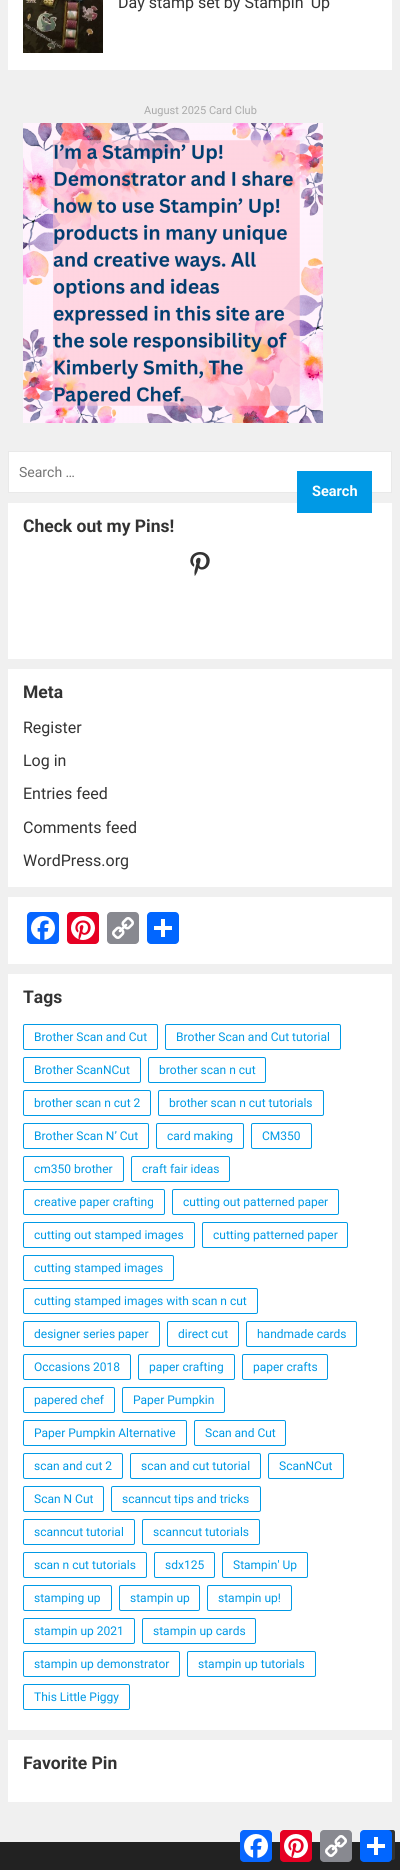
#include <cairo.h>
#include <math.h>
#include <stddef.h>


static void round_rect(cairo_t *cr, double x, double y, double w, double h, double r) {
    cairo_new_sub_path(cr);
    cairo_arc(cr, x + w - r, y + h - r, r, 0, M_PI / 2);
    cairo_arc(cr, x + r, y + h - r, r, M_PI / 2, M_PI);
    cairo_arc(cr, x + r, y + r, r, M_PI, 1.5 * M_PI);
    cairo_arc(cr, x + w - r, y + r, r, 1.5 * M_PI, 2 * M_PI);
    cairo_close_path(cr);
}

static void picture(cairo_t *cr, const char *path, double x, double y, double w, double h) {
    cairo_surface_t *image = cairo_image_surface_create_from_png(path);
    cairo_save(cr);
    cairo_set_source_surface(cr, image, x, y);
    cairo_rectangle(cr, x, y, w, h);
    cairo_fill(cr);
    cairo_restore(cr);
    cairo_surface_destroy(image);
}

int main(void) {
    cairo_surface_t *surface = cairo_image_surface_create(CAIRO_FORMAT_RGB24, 400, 1870);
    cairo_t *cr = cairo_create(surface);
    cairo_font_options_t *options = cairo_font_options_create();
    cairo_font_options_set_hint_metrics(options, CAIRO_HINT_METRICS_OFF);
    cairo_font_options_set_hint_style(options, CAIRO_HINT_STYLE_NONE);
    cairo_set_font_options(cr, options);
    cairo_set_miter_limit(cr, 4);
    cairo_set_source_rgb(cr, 0.941, 0.941, 0.941);
    cairo_paint(cr);
    cairo_set_source_rgb(cr, 1, 1, 1);
    cairo_rectangle(cr, 8, 0, 384, 70);
    cairo_fill(cr);
    picture(cr, "img1.png", 23, 0, 80, 53);
    cairo_select_font_face(cr, "Roboto", CAIRO_FONT_SLANT_NORMAL, CAIRO_FONT_WEIGHT_NORMAL);
    cairo_set_font_size(cr, 16);
    cairo_set_source_rgb(cr, 0.2, 0.2, 0.2);
    cairo_move_to(cr, 118, 8);
    cairo_show_text(cr, "Day stamp set by Stampin’ Up");
    cairo_set_font_size(cr, 11);
    cairo_set_source_rgb(cr, 0.667, 0.667, 0.667);
    cairo_move_to(cr, 144, 114);
    cairo_show_text(cr, "August 2025 Card Club");
    picture(cr, "img2.png", 23, 123, 300, 300);
    cairo_set_source_rgb(cr, 1, 1, 1);
    cairo_rectangle(cr, 8.5, 451.5, 383, 41);
    cairo_fill_preserve(cr);
    cairo_set_source_rgb(cr, 0.914, 0.914, 0.914);
    cairo_set_line_width(cr, 1);
    cairo_stroke(cr);
    cairo_set_font_size(cr, 14);
    cairo_set_source_rgb(cr, 0.459, 0.459, 0.459);
    cairo_move_to(cr, 19, 477);
    cairo_show_text(cr, "Search …");
    cairo_set_source_rgb(cr, 1, 1, 1);
    cairo_rectangle(cr, 8, 503, 384, 156);
    cairo_fill(cr);
    cairo_set_source_rgb(cr, 0, 0.6, 0.898);
    cairo_rectangle(cr, 297, 471, 75, 42);
    cairo_fill(cr);
    cairo_select_font_face(cr, "Roboto", CAIRO_FONT_SLANT_NORMAL, CAIRO_FONT_WEIGHT_BOLD);
    cairo_set_font_size(cr, 14.5);
    cairo_set_source_rgb(cr, 1, 1, 1);
    cairo_move_to(cr, 312, 496);
    cairo_show_text(cr, "Search");
    cairo_set_font_size(cr, 17.5);
    cairo_set_source_rgb(cr, 0.2, 0.2, 0.2);
    cairo_move_to(cr, 23, 532);
    cairo_show_text(cr, "Check out my Pins!");
    picture(cr, "img3.png", 190, 552, 20, 24);
    cairo_set_source_rgb(cr, 1, 1, 1);
    cairo_rectangle(cr, 8, 669, 384, 218);
    cairo_fill(cr);
    cairo_set_source_rgb(cr, 0.2, 0.2, 0.2);
    cairo_move_to(cr, 23, 698);
    cairo_show_text(cr, "Meta");
    cairo_select_font_face(cr, "Roboto", CAIRO_FONT_SLANT_NORMAL, CAIRO_FONT_WEIGHT_NORMAL);
    cairo_set_font_size(cr, 16);
    cairo_move_to(cr, 23, 733);
    cairo_show_text(cr, "Register");
    cairo_move_to(cr, 23, 766);
    cairo_show_text(cr, "Log in");
    cairo_move_to(cr, 23, 799);
    cairo_show_text(cr, "Entries feed");
    cairo_move_to(cr, 23, 833);
    cairo_show_text(cr, "Comments feed");
    cairo_move_to(cr, 23, 866);
    cairo_show_text(cr, "WordPress.org");
    cairo_set_source_rgb(cr, 1, 1, 1);
    cairo_rectangle(cr, 8, 897, 384, 67);
    cairo_fill(cr);
    cairo_set_source_rgb(cr, 0.031, 0.4, 1);
    round_rect(cr, 27, 912, 32, 32, 4);
    cairo_fill(cr);
    picture(cr, "img4.png", 31, 916, 24, 24);
    cairo_set_source_rgb(cr, 0.902, 0, 0.137);
    round_rect(cr, 67, 912, 32, 32, 4);
    cairo_fill(cr);
    picture(cr, "img5.png", 71, 916, 24, 24);
    cairo_set_source_rgb(cr, 0.533, 0.537, 0.565);
    round_rect(cr, 107, 912, 32, 32, 4);
    cairo_fill(cr);
    picture(cr, "img6.png", 112, 917, 22, 22);
    cairo_set_source_rgb(cr, 0.004, 0.4, 1);
    round_rect(cr, 147, 912, 32, 32, 4);
    cairo_fill(cr);
    cairo_set_source_rgb(cr, 1, 1, 1);
    cairo_rectangle(cr, 161, 919, 4, 18);
    cairo_fill(cr);
    cairo_rectangle(cr, 154, 926, 18, 4);
    cairo_fill(cr);
    cairo_rectangle(cr, 8, 974, 384, 756);
    cairo_fill(cr);
    cairo_select_font_face(cr, "Roboto", CAIRO_FONT_SLANT_NORMAL, CAIRO_FONT_WEIGHT_BOLD);
    cairo_set_font_size(cr, 17.5);
    cairo_set_source_rgb(cr, 0.2, 0.2, 0.2);
    cairo_move_to(cr, 23, 1003);
    cairo_show_text(cr, "Tags");
    round_rect(cr, 23.5, 1024.5, 134, 25, 1.5);
    cairo_set_source_rgb(cr, 0, 0.6, 0.898);
    cairo_stroke(cr);
    cairo_select_font_face(cr, "Roboto", CAIRO_FONT_SLANT_NORMAL, CAIRO_FONT_WEIGHT_NORMAL);
    cairo_set_font_size(cr, 12);
    cairo_move_to(cr, 34, 1041);
    cairo_show_text(cr, "Brother Scan and Cut");
    round_rect(cr, 165.5, 1024.5, 175, 25, 1.5);
    cairo_stroke(cr);
    cairo_move_to(cr, 176, 1041);
    cairo_show_text(cr, "Brother Scan and Cut tutorial");
    round_rect(cr, 23.5, 1057.5, 117, 25, 1.5);
    cairo_stroke(cr);
    cairo_move_to(cr, 34, 1074);
    cairo_show_text(cr, "Brother ScanNCut");
    round_rect(cr, 148.5, 1057.5, 117, 25, 1.5);
    cairo_stroke(cr);
    cairo_move_to(cr, 159, 1074);
    cairo_show_text(cr, "brother scan n cut");
    round_rect(cr, 23.5, 1090.5, 127, 25, 1.5);
    cairo_stroke(cr);
    cairo_move_to(cr, 34, 1107);
    cairo_show_text(cr, "brother scan n cut 2");
    round_rect(cr, 158.5, 1090.5, 165, 25, 1.5);
    cairo_stroke(cr);
    cairo_move_to(cr, 169, 1107);
    cairo_show_text(cr, "brother scan n cut tutorials");
    round_rect(cr, 23.5, 1123.5, 125, 25, 1.5);
    cairo_stroke(cr);
    cairo_move_to(cr, 34, 1140);
    cairo_show_text(cr, "Brother Scan N’ Cut");
    round_rect(cr, 156.5, 1123.5, 87, 25, 1.5);
    cairo_stroke(cr);
    cairo_move_to(cr, 167, 1140);
    cairo_show_text(cr, "card making");
    round_rect(cr, 251.5, 1123.5, 60, 25, 1.5);
    cairo_stroke(cr);
    cairo_move_to(cr, 262, 1140);
    cairo_show_text(cr, "CM350");
    round_rect(cr, 23.5, 1156.5, 100, 25, 1.5);
    cairo_stroke(cr);
    cairo_move_to(cr, 34, 1173);
    cairo_show_text(cr, "cm350 brother");
    round_rect(cr, 131.5, 1156.5, 98, 25, 1.5);
    cairo_stroke(cr);
    cairo_move_to(cr, 142, 1173);
    cairo_show_text(cr, "craft fair ideas");
    round_rect(cr, 23.5, 1189.5, 141, 25, 1.5);
    cairo_stroke(cr);
    cairo_move_to(cr, 34, 1206);
    cairo_show_text(cr, "creative paper crafting");
    round_rect(cr, 172.5, 1189.5, 166, 25, 1.5);
    cairo_stroke(cr);
    cairo_move_to(cr, 183, 1206);
    cairo_show_text(cr, "cutting out patterned paper");
    round_rect(cr, 23.5, 1222.5, 171, 25, 1.5);
    cairo_stroke(cr);
    cairo_move_to(cr, 34, 1239);
    cairo_show_text(cr, "cutting out stamped images");
    round_rect(cr, 202.5, 1222.5, 145, 25, 1.5);
    cairo_stroke(cr);
    cairo_move_to(cr, 213, 1239);
    cairo_show_text(cr, "cutting patterned paper");
    round_rect(cr, 23.5, 1255.5, 150, 25, 1.5);
    cairo_stroke(cr);
    cairo_move_to(cr, 34, 1272);
    cairo_show_text(cr, "cutting stamped images");
    round_rect(cr, 23.5, 1288.5, 234, 25, 1.5);
    cairo_stroke(cr);
    cairo_move_to(cr, 34, 1305);
    cairo_show_text(cr, "cutting stamped images with scan n cut");
    round_rect(cr, 23.5, 1321.5, 136, 25, 1.5);
    cairo_stroke(cr);
    cairo_move_to(cr, 34, 1338);
    cairo_show_text(cr, "designer series paper");
    round_rect(cr, 167.5, 1321.5, 71, 25, 1.5);
    cairo_stroke(cr);
    cairo_move_to(cr, 178, 1338);
    cairo_show_text(cr, "direct cut");
    round_rect(cr, 246.5, 1321.5, 110, 25, 1.5);
    cairo_stroke(cr);
    cairo_move_to(cr, 257, 1338);
    cairo_show_text(cr, "handmade cards");
    round_rect(cr, 23.5, 1354.5, 107, 25, 1.5);
    cairo_stroke(cr);
    cairo_move_to(cr, 34, 1371);
    cairo_show_text(cr, "Occasions 2018");
    round_rect(cr, 138.5, 1354.5, 96, 25, 1.5);
    cairo_stroke(cr);
    cairo_move_to(cr, 149, 1371);
    cairo_show_text(cr, "paper crafting");
    round_rect(cr, 242.5, 1354.5, 85, 25, 1.5);
    cairo_stroke(cr);
    cairo_move_to(cr, 253, 1371);
    cairo_show_text(cr, "paper crafts");
    round_rect(cr, 23.5, 1387.5, 91, 25, 1.5);
    cairo_stroke(cr);
    cairo_move_to(cr, 34, 1404);
    cairo_show_text(cr, "papered chef");
    round_rect(cr, 122.5, 1387.5, 102, 25, 1.5);
    cairo_stroke(cr);
    cairo_move_to(cr, 133, 1404);
    cairo_show_text(cr, "Paper Pumpkin");
    round_rect(cr, 23.5, 1420.5, 163, 25, 1.5);
    cairo_stroke(cr);
    cairo_move_to(cr, 34, 1437);
    cairo_show_text(cr, "Paper Pumpkin Alternative");
    round_rect(cr, 194.5, 1420.5, 91, 25, 1.5);
    cairo_stroke(cr);
    cairo_move_to(cr, 205, 1437);
    cairo_show_text(cr, "Scan and Cut");
    round_rect(cr, 23.5, 1453.5, 99, 25, 1.5);
    cairo_stroke(cr);
    cairo_move_to(cr, 34, 1470);
    cairo_show_text(cr, "scan and cut 2");
    round_rect(cr, 130.5, 1453.5, 130, 25, 1.5);
    cairo_stroke(cr);
    cairo_move_to(cr, 141, 1470);
    cairo_show_text(cr, "scan and cut tutorial");
    round_rect(cr, 268.5, 1453.5, 75, 25, 1.5);
    cairo_stroke(cr);
    cairo_move_to(cr, 279, 1470);
    cairo_show_text(cr, "ScanNCut");
    round_rect(cr, 23.5, 1486.5, 80, 25, 1.5);
    cairo_stroke(cr);
    cairo_move_to(cr, 34, 1503);
    cairo_show_text(cr, "Scan N Cut");
    round_rect(cr, 111.5, 1486.5, 149, 25, 1.5);
    cairo_stroke(cr);
    cairo_move_to(cr, 122, 1503);
    cairo_show_text(cr, "scanncut tips and tricks");
    round_rect(cr, 23.5, 1519.5, 111, 25, 1.5);
    cairo_stroke(cr);
    cairo_move_to(cr, 34, 1536);
    cairo_show_text(cr, "scanncut tutorial");
    round_rect(cr, 142.5, 1519.5, 117, 25, 1.5);
    cairo_stroke(cr);
    cairo_move_to(cr, 153, 1536);
    cairo_show_text(cr, "scanncut tutorials");
    round_rect(cr, 23.5, 1552.5, 123, 25, 1.5);
    cairo_stroke(cr);
    cairo_move_to(cr, 34, 1569);
    cairo_show_text(cr, "scan n cut tutorials");
    round_rect(cr, 154.5, 1552.5, 60, 25, 1.5);
    cairo_stroke(cr);
    cairo_move_to(cr, 165, 1569);
    cairo_show_text(cr, "sdx125");
    round_rect(cr, 222.5, 1552.5, 85, 25, 1.5);
    cairo_stroke(cr);
    cairo_move_to(cr, 233, 1569);
    cairo_show_text(cr, "Stampin' Up");
    round_rect(cr, 23.5, 1585.5, 88, 25, 1.5);
    cairo_stroke(cr);
    cairo_move_to(cr, 34, 1602);
    cairo_show_text(cr, "stamping up");
    round_rect(cr, 119.5, 1585.5, 80, 25, 1.5);
    cairo_stroke(cr);
    cairo_move_to(cr, 130, 1602);
    cairo_show_text(cr, "stampin up");
    round_rect(cr, 207.5, 1585.5, 84, 25, 1.5);
    cairo_stroke(cr);
    cairo_move_to(cr, 218, 1602);
    cairo_show_text(cr, "stampin up!");
    round_rect(cr, 23.5, 1618.5, 111, 25, 1.5);
    cairo_stroke(cr);
    cairo_move_to(cr, 34, 1635);
    cairo_show_text(cr, "stampin up 2021");
    round_rect(cr, 142.5, 1618.5, 113, 25, 1.5);
    cairo_stroke(cr);
    cairo_move_to(cr, 153, 1635);
    cairo_show_text(cr, "stampin up cards");
    round_rect(cr, 23.5, 1651.5, 156, 25, 1.5);
    cairo_stroke(cr);
    cairo_move_to(cr, 34, 1668);
    cairo_show_text(cr, "stampin up demonstrator");
    round_rect(cr, 187.5, 1651.5, 128, 25, 1.5);
    cairo_stroke(cr);
    cairo_move_to(cr, 198, 1668);
    cairo_show_text(cr, "stampin up tutorials");
    round_rect(cr, 23.5, 1684.5, 106, 25, 1.5);
    cairo_stroke(cr);
    cairo_move_to(cr, 34, 1701);
    cairo_show_text(cr, "This Little Piggy");
    cairo_set_source_rgb(cr, 1, 1, 1);
    cairo_rectangle(cr, 8, 1740, 384, 62);
    cairo_fill(cr);
    cairo_select_font_face(cr, "Roboto", CAIRO_FONT_SLANT_NORMAL, CAIRO_FONT_WEIGHT_BOLD);
    cairo_set_font_size(cr, 17.5);
    cairo_set_source_rgb(cr, 0.2, 0.2, 0.2);
    cairo_move_to(cr, 23, 1769);
    cairo_show_text(cr, "Favorite Pin");
    cairo_set_source_rgb(cr, 0.133, 0.133, 0.133);
    cairo_rectangle(cr, 0, 1842, 400, 28);
    cairo_fill(cr);
    cairo_set_source_rgb(cr, 0.031, 0.4, 1);
    round_rect(cr, 240, 1830, 32, 32, 4);
    cairo_fill(cr);
    picture(cr, "img4.png", 244, 1834, 24, 24);
    cairo_set_source_rgb(cr, 0.902, 0, 0.137);
    round_rect(cr, 280, 1830, 32, 32, 4);
    cairo_fill(cr);
    picture(cr, "img5.png", 284, 1834, 24, 24);
    cairo_set_source_rgb(cr, 0.533, 0.537, 0.565);
    round_rect(cr, 320, 1830, 32, 32, 4);
    cairo_fill(cr);
    picture(cr, "img6.png", 325, 1835, 22, 22);
    cairo_set_source_rgb(cr, 0.2, 0.2, 0.2);
    round_rect(cr, 365, 1830, 30, 30, 2);
    cairo_fill(cr);
    cairo_set_source_rgb(cr, 0.004, 0.4, 1);
    round_rect(cr, 360, 1830, 32, 32, 4);
    cairo_fill(cr);
    cairo_set_source_rgb(cr, 1, 1, 1);
    cairo_rectangle(cr, 374, 1837, 4, 18);
    cairo_fill(cr);
    cairo_rectangle(cr, 367, 1844, 18, 4);
    cairo_fill(cr);
    cairo_surface_write_to_png(surface, "page.png");
    cairo_font_options_destroy(options);
    cairo_destroy(cr);
    cairo_surface_destroy(surface);
    return 0;
}
